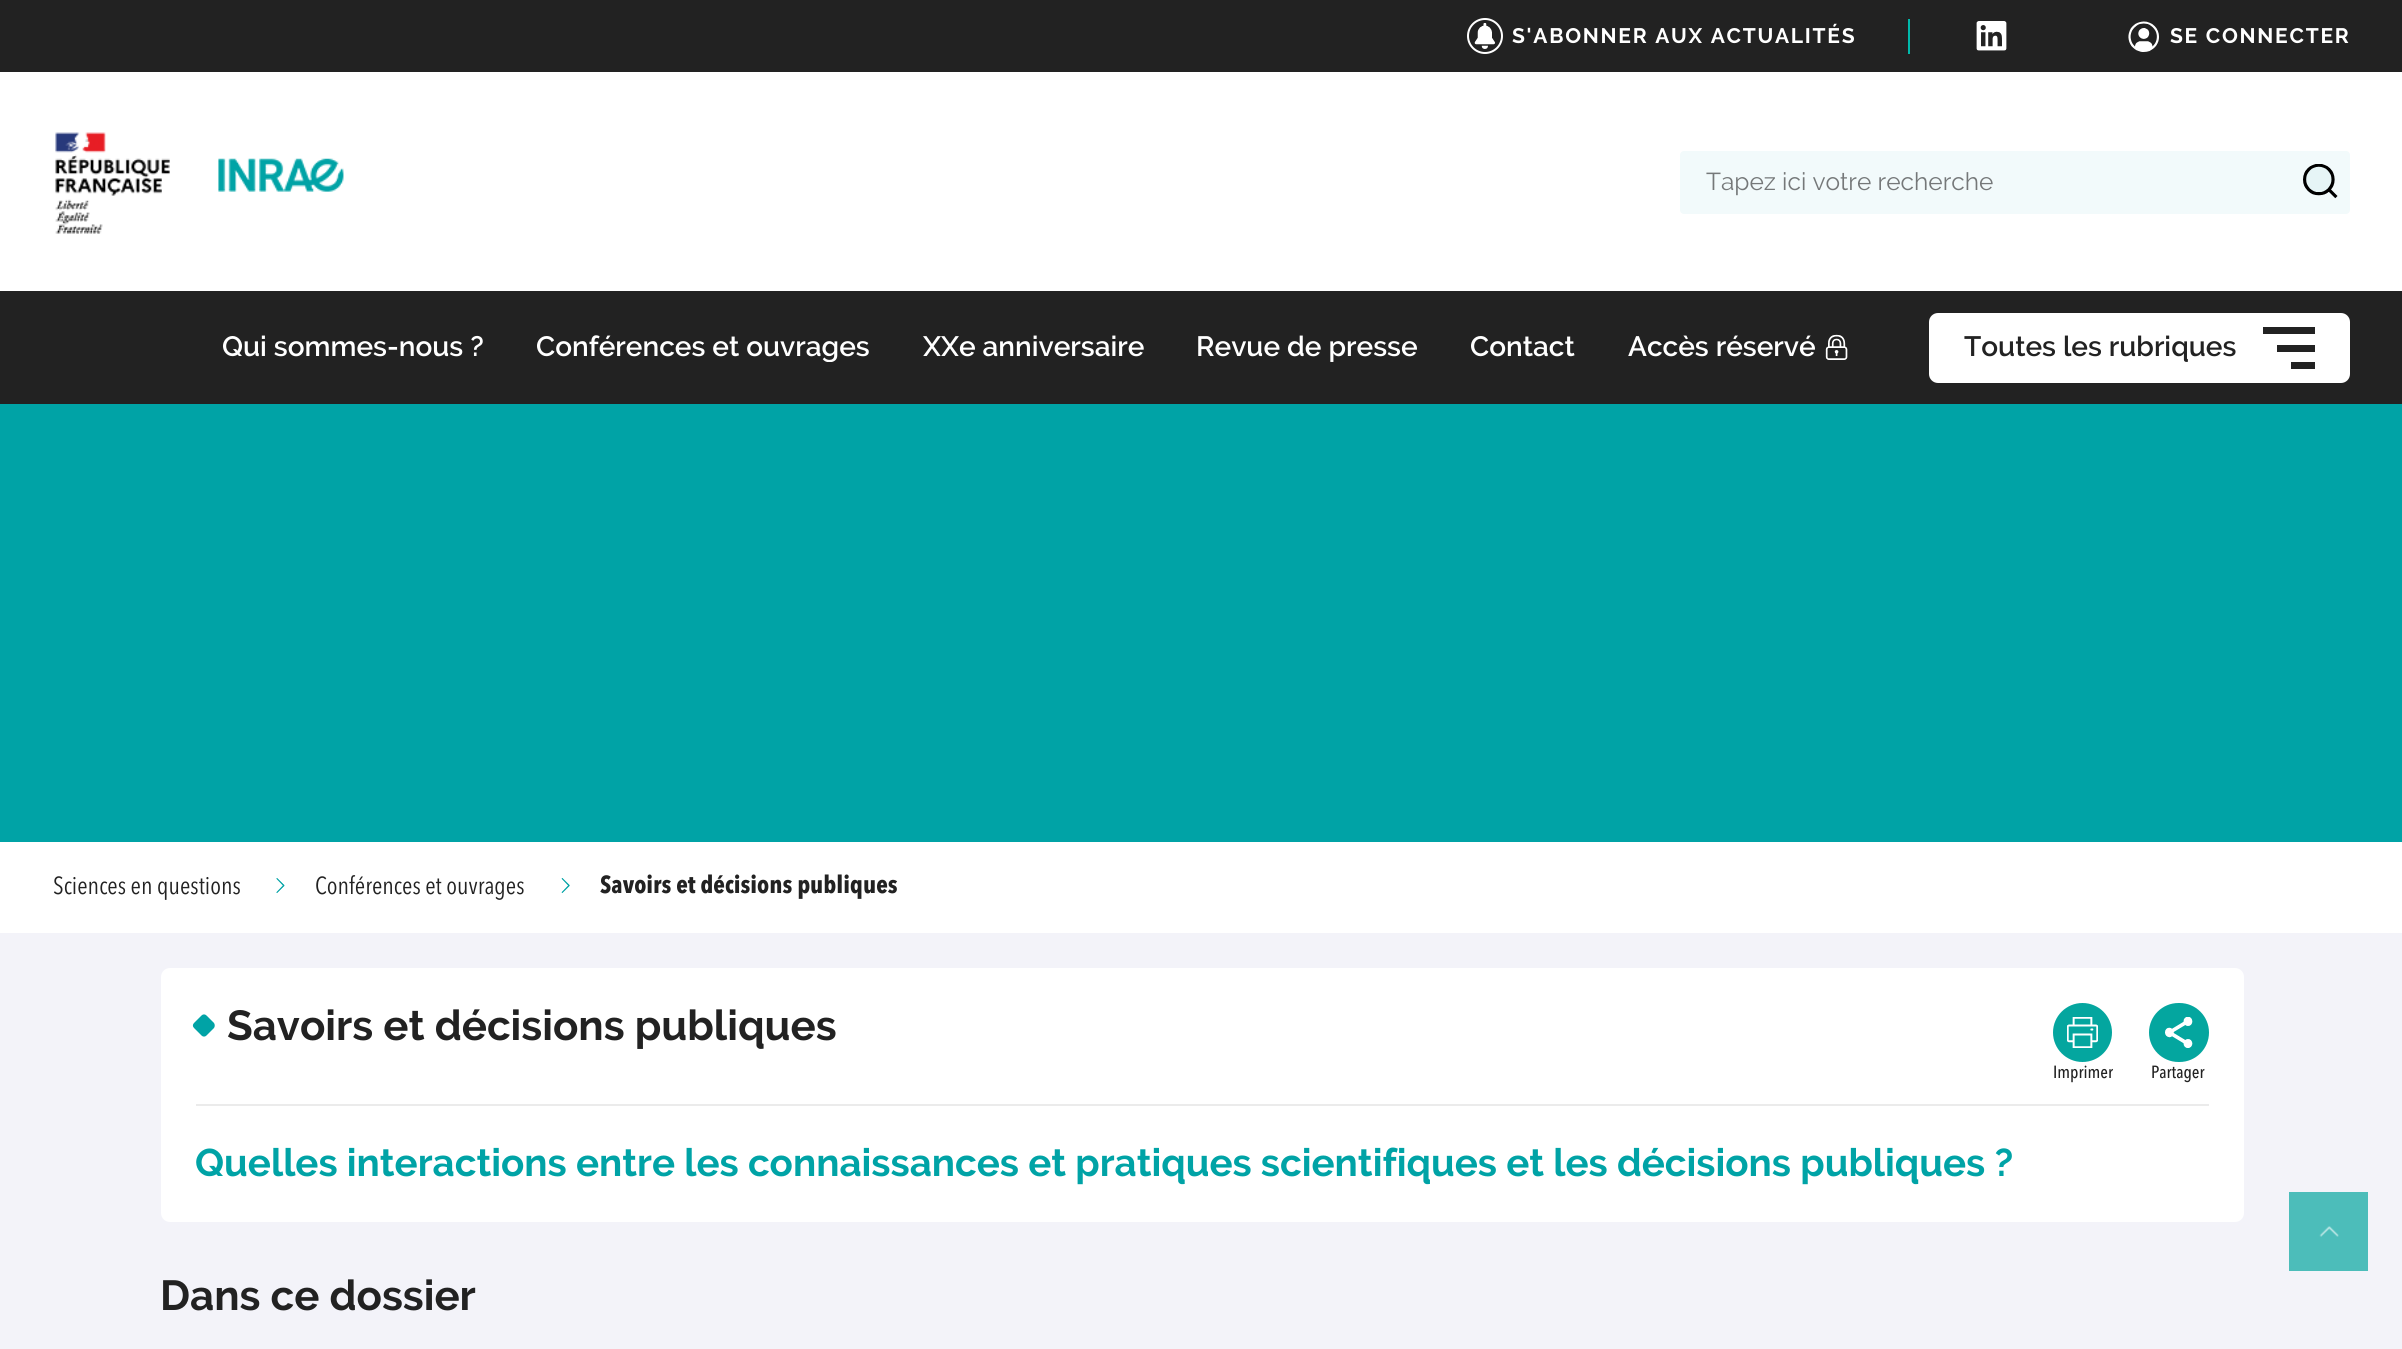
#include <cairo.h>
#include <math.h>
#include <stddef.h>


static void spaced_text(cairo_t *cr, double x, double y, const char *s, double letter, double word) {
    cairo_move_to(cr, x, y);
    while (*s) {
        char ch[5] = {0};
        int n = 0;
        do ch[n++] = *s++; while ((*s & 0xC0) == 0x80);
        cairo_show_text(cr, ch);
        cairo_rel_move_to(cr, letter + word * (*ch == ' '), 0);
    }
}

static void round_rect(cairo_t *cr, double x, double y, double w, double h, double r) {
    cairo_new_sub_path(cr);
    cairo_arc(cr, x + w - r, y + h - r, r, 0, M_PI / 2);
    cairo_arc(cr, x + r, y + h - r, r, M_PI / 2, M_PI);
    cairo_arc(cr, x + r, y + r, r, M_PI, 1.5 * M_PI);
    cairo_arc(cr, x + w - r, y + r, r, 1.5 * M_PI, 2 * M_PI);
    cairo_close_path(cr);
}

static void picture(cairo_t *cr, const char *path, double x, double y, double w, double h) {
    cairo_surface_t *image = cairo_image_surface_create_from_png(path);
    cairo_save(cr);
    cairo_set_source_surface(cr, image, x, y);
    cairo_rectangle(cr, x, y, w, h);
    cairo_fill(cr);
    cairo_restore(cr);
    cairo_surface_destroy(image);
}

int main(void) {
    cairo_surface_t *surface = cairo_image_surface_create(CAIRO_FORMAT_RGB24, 2402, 1349);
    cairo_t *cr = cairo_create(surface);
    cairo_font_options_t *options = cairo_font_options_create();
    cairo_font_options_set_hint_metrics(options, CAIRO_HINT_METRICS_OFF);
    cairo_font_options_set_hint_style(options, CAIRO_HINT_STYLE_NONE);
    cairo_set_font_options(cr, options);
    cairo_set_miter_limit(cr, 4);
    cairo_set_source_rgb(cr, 1, 1, 1);
    cairo_paint(cr);
    cairo_set_source_rgb(cr, 0.133, 0.133, 0.133);
    cairo_rectangle(cr, 0, 0, 2402, 72);
    cairo_fill(cr);
    cairo_arc(cr, 1485, 36, 17, 0, 2 * M_PI);
    cairo_set_source_rgb(cr, 1, 1, 1);
    cairo_stroke(cr);
    picture(cr, "img1.png", 1474, 23, 21, 26);
    cairo_select_font_face(cr, "Raleway", CAIRO_FONT_SLANT_NORMAL, CAIRO_FONT_WEIGHT_BOLD);
    cairo_set_font_size(cr, 21);
    spaced_text(cr, 1512, 43, "S'ABONNER AUX ACTUALITÉS", 1.75, 0);
    cairo_set_source_rgb(cr, 0, 0.725, 0.671);
    cairo_rectangle(cr, 1908, 19, 2, 35);
    cairo_fill(cr);
    picture(cr, "img2.png", 1976, 21, 31, 30);
    picture(cr, "img3.png", 2128, 21, 31, 31);
    cairo_set_source_rgb(cr, 1, 1, 1);
    spaced_text(cr, 2170, 43, "SE CONNECTER", 1.75, 0);
    picture(cr, "img4.png", 55, 132, 289, 102);
    cairo_set_source_rgb(cr, 0.949, 0.98, 0.984);
    round_rect(cr, 1680, 151, 670, 63, 4);
    cairo_fill(cr);
    cairo_select_font_face(cr, "Raleway", CAIRO_FONT_SLANT_NORMAL, CAIRO_FONT_WEIGHT_NORMAL);
    cairo_set_font_size(cr, 24.5);
    cairo_set_source_rgb(cr, 0.459, 0.471, 0.475);
    cairo_move_to(cr, 1706, 190);
    cairo_show_text(cr, "Tapez ici votre recherche");
    picture(cr, "img5.png", 2303, 164, 35, 35);
    cairo_set_source_rgb(cr, 0.133, 0.133, 0.133);
    cairo_rectangle(cr, 0, 291, 2402, 113);
    cairo_fill(cr);
    cairo_select_font_face(cr, "Raleway SemiBold", CAIRO_FONT_SLANT_NORMAL, CAIRO_FONT_WEIGHT_NORMAL);
    cairo_set_font_size(cr, 28);
    cairo_set_source_rgb(cr, 1, 1, 1);
    cairo_move_to(cr, 222, 356);
    cairo_show_text(cr, "Qui sommes-nous ?");
    cairo_save(cr);
    cairo_rectangle(cr, 536, 334, 334, 28);
    cairo_clip(cr);
    cairo_move_to(cr, 536, 356);
    cairo_show_text(cr, "Conférences et ouvrages");
    cairo_restore(cr);
    cairo_move_to(cr, 923, 356);
    cairo_show_text(cr, "XXe anniversaire");
    cairo_move_to(cr, 1196, 356);
    cairo_show_text(cr, "Revue de presse");
    cairo_move_to(cr, 1470, 356);
    cairo_show_text(cr, "Contact");
    cairo_move_to(cr, 1628, 356);
    cairo_show_text(cr, "Accès réservé");
    picture(cr, "img6.png", 1825, 334, 23, 26);
    round_rect(cr, 1929, 313, 421, 70, 9);
    cairo_fill(cr);
    cairo_set_source_rgb(cr, 0.133, 0.133, 0.133);
    cairo_move_to(cr, 1964, 356);
    cairo_show_text(cr, "Toutes les rubriques");
    cairo_rectangle(cr, 2263, 327, 52, 7);
    cairo_fill(cr);
    cairo_rectangle(cr, 2277, 345, 38, 7);
    cairo_fill(cr);
    cairo_rectangle(cr, 2291, 362, 24, 7);
    cairo_fill(cr);
    cairo_set_source_rgb(cr, 0, 0.639, 0.651);
    cairo_rectangle(cr, 0, 404, 2402, 438);
    cairo_fill(cr);
    cairo_select_font_face(cr, "Avenir Next", CAIRO_FONT_SLANT_NORMAL, CAIRO_FONT_WEIGHT_NORMAL);
    cairo_set_font_size(cr, 24.5);
    cairo_set_source_rgb(cr, 0.133, 0.133, 0.133);
    cairo_move_to(cr, 53, 894);
    cairo_show_text(cr, "Sciences en questions");
    picture(cr, "img7.png", 276, 878, 9, 15);
    cairo_move_to(cr, 315, 894);
    cairo_show_text(cr, "Conférences et ouvrages");
    picture(cr, "img8.png", 561, 878, 9, 15);
    cairo_select_font_face(cr, "Avenir Next", CAIRO_FONT_SLANT_NORMAL, CAIRO_FONT_WEIGHT_BOLD);
    cairo_move_to(cr, 600, 893);
    cairo_show_text(cr, "Savoirs et décisions publiques");
    cairo_set_source_rgb(cr, 0.953, 0.953, 0.973);
    cairo_rectangle(cr, 0, 933, 2402, 416);
    cairo_fill(cr);
    cairo_set_source_rgb(cr, 1, 1, 1);
    round_rect(cr, 161, 968, 2083, 254, 9);
    cairo_fill(cr);
    cairo_set_source_rgb(cr, 0.918, 0.918, 0.918);
    cairo_rectangle(cr, 196, 1104, 2013, 2);
    cairo_fill(cr);
    cairo_set_source_rgb(cr, 0, 0.639, 0.651);
    cairo_new_path(cr);
    cairo_move_to(cr, 206.5, 1015.5);
    cairo_line_to(cr, 214, 1023);
    cairo_curve_to(cr, 215, 1024.5, 215, 1026.5, 214, 1028);
    cairo_line_to(cr, 206.5, 1035.5);
    cairo_curve_to(cr, 205, 1037, 203, 1037, 201.5, 1035.5);
    cairo_line_to(cr, 194, 1028);
    cairo_curve_to(cr, 192.5, 1026.5, 192.5, 1024.5, 194, 1023);
    cairo_line_to(cr, 201.5, 1015.5);
    cairo_curve_to(cr, 203, 1014, 205, 1014, 206.5, 1015.5);
    cairo_close_path(cr);
    cairo_fill(cr);
    cairo_select_font_face(cr, "Raleway", CAIRO_FONT_SLANT_NORMAL, CAIRO_FONT_WEIGHT_BOLD);
    cairo_set_font_size(cr, 42);
    cairo_set_source_rgb(cr, 0.133, 0.133, 0.133);
    cairo_move_to(cr, 227, 1040);
    cairo_show_text(cr, "Savoirs et décisions publiques");
    cairo_set_source_rgb(cr, 0.016, 0.651, 0.624);
    cairo_new_path(cr);
    cairo_arc(cr, 2082.5, 1032.5, 29.5, 0, 2 * M_PI);
    cairo_fill(cr);
    picture(cr, "img9.png", 2067, 1017, 31, 31);
    cairo_select_font_face(cr, "Avenir Next Medium", CAIRO_FONT_SLANT_NORMAL, CAIRO_FONT_WEIGHT_NORMAL);
    cairo_set_font_size(cr, 17.5);
    cairo_set_source_rgb(cr, 0.133, 0.133, 0.133);
    cairo_move_to(cr, 2053, 1078);
    cairo_show_text(cr, "Imprimer");
    cairo_set_source_rgb(cr, 0.016, 0.651, 0.624);
    round_rect(cr, 2149, 1003, 60, 59, 29.5);
    cairo_fill(cr);
    picture(cr, "img10.png", 2165, 1017, 28, 31);
    cairo_set_source_rgb(cr, 0.133, 0.133, 0.133);
    cairo_move_to(cr, 2151, 1078);
    cairo_show_text(cr, "Partager");
    cairo_select_font_face(cr, "Raleway", CAIRO_FONT_SLANT_NORMAL, CAIRO_FONT_WEIGHT_BOLD);
    cairo_set_font_size(cr, 38.5);
    cairo_set_source_rgb(cr, 0, 0.639, 0.651);
    cairo_move_to(cr, 195, 1176);
    cairo_show_text(cr, "Quelles interactions entre les connaissances et pratiques scientifiques et les décisions publiques ?");
    cairo_set_font_size(cr, 42);
    cairo_set_source_rgb(cr, 0.133, 0.133, 0.133);
    cairo_move_to(cr, 160, 1310);
    cairo_show_text(cr, "Dans ce dossier");
    cairo_set_source_rgb(cr, 0.298, 0.741, 0.729);
    cairo_rectangle(cr, 2289, 1192, 79, 79);
    cairo_fill(cr);
    picture(cr, "img11.png", 2319, 1226, 20, 11);
    cairo_surface_write_to_png(surface, "page.png");
    cairo_font_options_destroy(options);
    cairo_destroy(cr);
    cairo_surface_destroy(surface);
    return 0;
}
